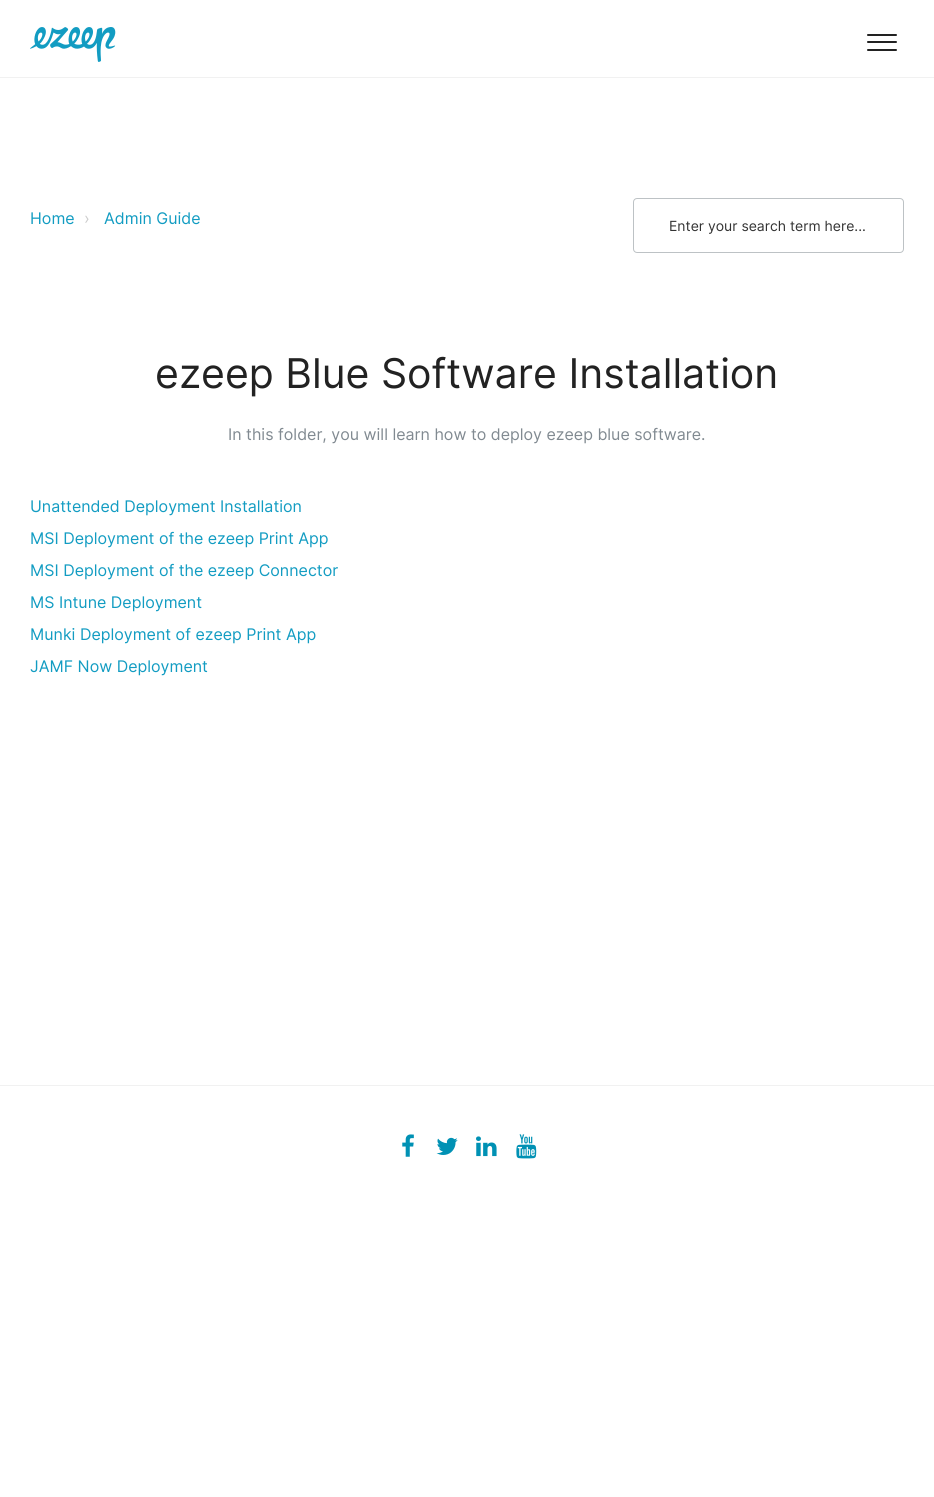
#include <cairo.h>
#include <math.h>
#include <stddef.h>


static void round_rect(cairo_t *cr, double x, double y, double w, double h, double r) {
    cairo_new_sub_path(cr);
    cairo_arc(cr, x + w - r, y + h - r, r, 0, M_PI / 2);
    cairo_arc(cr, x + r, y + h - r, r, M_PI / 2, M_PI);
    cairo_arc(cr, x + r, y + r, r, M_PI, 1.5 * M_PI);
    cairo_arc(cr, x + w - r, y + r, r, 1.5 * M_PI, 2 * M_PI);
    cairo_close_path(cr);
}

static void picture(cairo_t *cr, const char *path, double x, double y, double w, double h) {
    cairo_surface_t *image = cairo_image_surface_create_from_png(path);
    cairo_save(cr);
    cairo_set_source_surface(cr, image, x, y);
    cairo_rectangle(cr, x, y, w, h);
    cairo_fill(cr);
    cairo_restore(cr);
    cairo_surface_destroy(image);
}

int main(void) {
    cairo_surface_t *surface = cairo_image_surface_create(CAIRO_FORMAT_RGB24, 934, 1497);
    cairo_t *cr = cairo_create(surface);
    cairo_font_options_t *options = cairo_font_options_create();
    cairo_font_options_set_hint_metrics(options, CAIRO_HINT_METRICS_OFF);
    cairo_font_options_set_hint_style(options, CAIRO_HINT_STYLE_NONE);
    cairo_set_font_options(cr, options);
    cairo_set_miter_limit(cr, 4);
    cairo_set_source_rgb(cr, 1, 1, 1);
    cairo_paint(cr);
    cairo_set_source_rgb(cr, 0.945, 0.945, 0.945);
    cairo_rectangle(cr, 0, 77, 934, 1);
    cairo_fill(cr);
    picture(cr, "img1.png", 30, 27, 86, 35);
    cairo_set_source_rgb(cr, 0.133, 0.133, 0.133);
    round_rect(cr, 867, 41, 30, 2, 1);
    cairo_fill(cr);
    round_rect(cr, 867, 34, 30, 2, 1);
    cairo_fill(cr);
    round_rect(cr, 867, 49, 30, 2, 1);
    cairo_fill(cr);
    cairo_select_font_face(cr, "Inter", CAIRO_FONT_SLANT_NORMAL, CAIRO_FONT_WEIGHT_NORMAL);
    cairo_set_font_size(cr, 16);
    cairo_set_source_rgb(cr, 0.071, 0.612, 0.761);
    cairo_move_to(cr, 30, 224);
    cairo_show_text(cr, "Home");
    cairo_set_source_rgb(cr, 0.8, 0.8, 0.8);
    cairo_move_to(cr, 84, 224);
    cairo_show_text(cr, "›");
    cairo_set_source_rgb(cr, 0.071, 0.612, 0.761);
    cairo_move_to(cr, 104, 224);
    cairo_show_text(cr, "Admin Guide");
    round_rect(cr, 633.5, 198.5, 270, 54, 3.5);
    cairo_set_source_rgb(cr, 0.741, 0.761, 0.773);
    cairo_set_line_width(cr, 1);
    cairo_stroke(cr);
    cairo_set_font_size(cr, 14);
    cairo_set_source_rgb(cr, 0.2, 0.2, 0.2);
    cairo_move_to(cr, 669, 231);
    cairo_show_text(cr, "Enter your search term here...");
    cairo_set_font_size(cr, 41);
    cairo_set_source_rgb(cr, 0.133, 0.133, 0.133);
    cairo_move_to(cr, 155, 388);
    cairo_show_text(cr, "ezeep Blue Software Installation");
    cairo_set_font_size(cr, 16);
    cairo_set_source_rgb(cr, 0.506, 0.541, 0.569);
    cairo_move_to(cr, 228, 440);
    cairo_show_text(cr, "In this folder, you will learn how to deploy ezeep blue software.");
    cairo_set_source_rgb(cr, 0.071, 0.612, 0.761);
    cairo_move_to(cr, 30, 512);
    cairo_show_text(cr, "Unattended Deployment Installation");
    cairo_move_to(cr, 30, 544);
    cairo_show_text(cr, "MSI Deployment of the ezeep Print App");
    cairo_move_to(cr, 30, 576);
    cairo_show_text(cr, "MSI Deployment of the ezeep Connector");
    cairo_move_to(cr, 30, 608);
    cairo_show_text(cr, "MS Intune Deployment");
    cairo_move_to(cr, 30, 640);
    cairo_show_text(cr, "Munki Deployment of ezeep Print App");
    cairo_move_to(cr, 30, 672);
    cairo_show_text(cr, "JAMF Now Deployment");
    cairo_set_source_rgb(cr, 0.945, 0.945, 0.945);
    cairo_rectangle(cr, 0, 1085, 934, 1);
    cairo_fill(cr);
    picture(cr, "img2.png", 402, 1134, 12, 23);
    picture(cr, "img3.png", 436, 1137, 22, 18);
    picture(cr, "img4.png", 476, 1136, 21, 21);
    picture(cr, "img5.png", 516, 1134, 21, 25);
    cairo_surface_write_to_png(surface, "page.png");
    cairo_font_options_destroy(options);
    cairo_destroy(cr);
    cairo_surface_destroy(surface);
    return 0;
}
